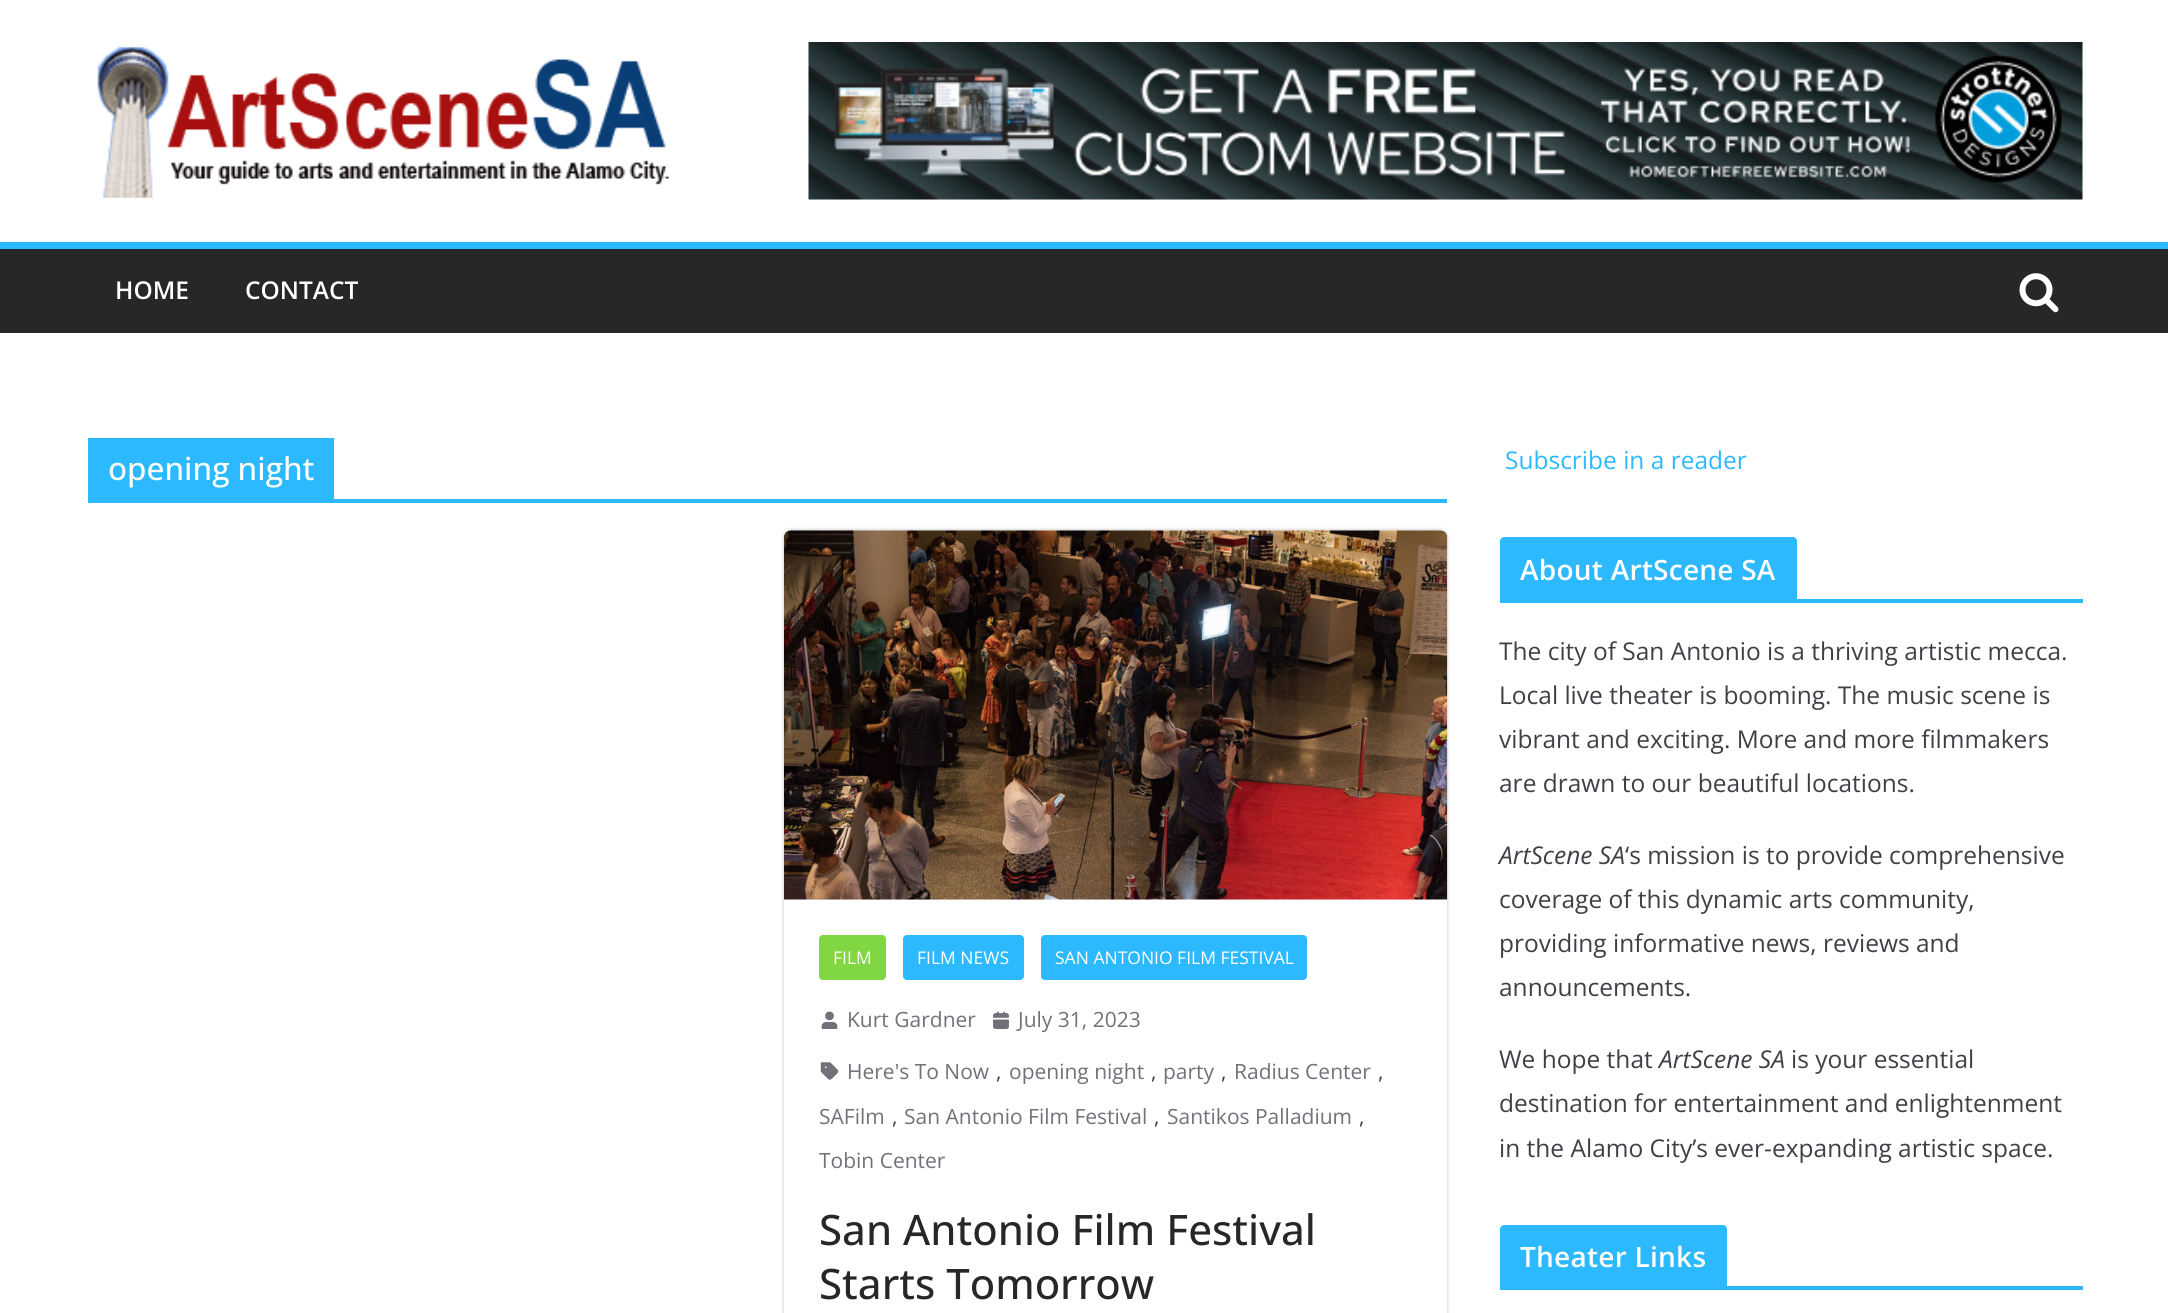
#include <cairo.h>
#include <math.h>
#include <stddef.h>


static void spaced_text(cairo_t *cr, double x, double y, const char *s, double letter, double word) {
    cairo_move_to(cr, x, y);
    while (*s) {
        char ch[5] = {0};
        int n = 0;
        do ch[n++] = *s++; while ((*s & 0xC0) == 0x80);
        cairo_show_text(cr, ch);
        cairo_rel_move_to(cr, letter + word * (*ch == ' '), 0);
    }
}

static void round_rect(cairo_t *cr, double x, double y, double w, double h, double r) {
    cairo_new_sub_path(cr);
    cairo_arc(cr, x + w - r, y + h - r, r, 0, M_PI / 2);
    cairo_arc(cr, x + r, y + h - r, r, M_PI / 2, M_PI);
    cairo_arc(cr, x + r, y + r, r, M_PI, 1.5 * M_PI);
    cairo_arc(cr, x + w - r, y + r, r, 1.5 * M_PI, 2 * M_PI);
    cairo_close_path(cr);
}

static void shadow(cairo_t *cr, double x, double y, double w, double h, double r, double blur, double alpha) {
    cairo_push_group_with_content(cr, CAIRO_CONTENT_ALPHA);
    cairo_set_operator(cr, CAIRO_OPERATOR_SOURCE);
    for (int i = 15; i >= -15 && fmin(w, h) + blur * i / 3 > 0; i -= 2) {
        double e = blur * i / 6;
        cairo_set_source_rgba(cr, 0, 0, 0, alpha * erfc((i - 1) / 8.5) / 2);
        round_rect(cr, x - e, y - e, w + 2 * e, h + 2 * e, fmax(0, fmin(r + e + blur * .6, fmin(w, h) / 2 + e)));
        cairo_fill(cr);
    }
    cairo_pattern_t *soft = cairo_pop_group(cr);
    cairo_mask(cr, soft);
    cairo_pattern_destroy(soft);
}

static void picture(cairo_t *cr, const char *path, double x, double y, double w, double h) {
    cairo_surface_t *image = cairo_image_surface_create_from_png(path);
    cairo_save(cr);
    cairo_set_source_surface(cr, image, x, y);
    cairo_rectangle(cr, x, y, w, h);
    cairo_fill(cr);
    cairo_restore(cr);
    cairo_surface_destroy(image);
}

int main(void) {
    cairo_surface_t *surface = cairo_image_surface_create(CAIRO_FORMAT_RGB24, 2168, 1313);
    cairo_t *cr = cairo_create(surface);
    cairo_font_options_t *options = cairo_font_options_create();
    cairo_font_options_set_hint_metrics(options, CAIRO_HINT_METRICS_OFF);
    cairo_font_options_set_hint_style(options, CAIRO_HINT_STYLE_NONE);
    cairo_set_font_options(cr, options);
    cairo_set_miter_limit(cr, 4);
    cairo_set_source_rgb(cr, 1, 1, 1);
    cairo_paint(cr);
    picture(cr, "img1.png", 97, 46, 573, 152);
    picture(cr, "img2.png", 808, 42, 1275, 158);
    cairo_set_source_rgb(cr, 0.153, 0.153, 0.165);
    cairo_rectangle(cr, 0, 249, 2168, 84);
    cairo_fill(cr);
    cairo_set_source_rgb(cr, 0.173, 0.725, 1);
    cairo_rectangle(cr, 0, 242, 2168, 7);
    cairo_fill(cr);
    cairo_select_font_face(cr, "Open Sans SemiBold", CAIRO_FONT_SLANT_NORMAL, CAIRO_FONT_WEIGHT_NORMAL);
    cairo_set_font_size(cr, 24.5);
    cairo_set_source_rgb(cr, 1, 1, 1);
    cairo_move_to(cr, 115, 299);
    cairo_show_text(cr, "HOME");
    cairo_move_to(cr, 245, 299);
    cairo_show_text(cr, "CONTACT");
    picture(cr, "img3.png", 2019, 273, 40, 40);
    cairo_set_source_rgb(cr, 0.173, 0.725, 1);
    cairo_rectangle(cr, 88, 499, 1359, 4);
    cairo_fill(cr);
    cairo_rectangle(cr, 88, 438, 246, 61);
    cairo_fill(cr);
    cairo_select_font_face(cr, "Open Sans Medium", CAIRO_FONT_SLANT_NORMAL, CAIRO_FONT_WEIGHT_NORMAL);
    cairo_set_font_size(cr, 31.5);
    cairo_set_source_rgb(cr, 1, 1, 1);
    cairo_move_to(cr, 108, 480);
    cairo_show_text(cr, "opening night");
    cairo_save(cr);
    cairo_set_fill_rule(cr, CAIRO_FILL_RULE_EVEN_ODD);
    cairo_new_path(cr);
    cairo_move_to(cr, 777, 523);
    cairo_line_to(cr, 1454, 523);
    cairo_line_to(cr, 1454, 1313);
    cairo_line_to(cr, 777, 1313);
    cairo_close_path(cr);
    cairo_move_to(cr, 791, 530);
    cairo_line_to(cr, 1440, 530);
    cairo_curve_to(cr, 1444, 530, 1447, 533, 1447, 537);
    cairo_line_to(cr, 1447, 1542);
    cairo_curve_to(cr, 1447, 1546, 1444, 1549, 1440, 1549);
    cairo_line_to(cr, 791, 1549);
    cairo_curve_to(cr, 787, 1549, 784, 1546, 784, 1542);
    cairo_line_to(cr, 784, 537);
    cairo_curve_to(cr, 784, 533, 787, 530, 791, 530);
    cairo_close_path(cr);
    cairo_clip(cr);
    cairo_set_source_rgb(cr, 0, 0, 0);
    shadow(cr, 784, 530, 663, 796, 7, 2, 0.24);
    cairo_restore(cr);
    picture(cr, "img4.png", 784, 530, 664, 370);
    cairo_set_source_rgb(cr, 0.506, 0.843, 0.259);
    round_rect(cr, 819, 935, 67, 45, 4);
    cairo_fill(cr);
    cairo_select_font_face(cr, "Open Sans", CAIRO_FONT_SLANT_NORMAL, CAIRO_FONT_WEIGHT_NORMAL);
    cairo_set_font_size(cr, 17.5);
    cairo_set_source_rgb(cr, 1, 1, 1);
    cairo_move_to(cr, 833, 964);
    cairo_show_text(cr, "FILM");
    cairo_set_source_rgb(cr, 0.173, 0.725, 1);
    round_rect(cr, 903, 935, 121, 45, 4);
    cairo_fill(cr);
    cairo_set_source_rgb(cr, 1, 1, 1);
    cairo_move_to(cr, 917, 964);
    cairo_show_text(cr, "FILM NEWS");
    cairo_set_source_rgb(cr, 0.173, 0.725, 1);
    round_rect(cr, 1041, 935, 266, 45, 4);
    cairo_fill(cr);
    cairo_set_source_rgb(cr, 1, 1, 1);
    cairo_move_to(cr, 1055, 964);
    cairo_show_text(cr, "SAN ANTONIO FILM FESTIVAL");
    picture(cr, "img5.png", 821, 1011, 17, 18);
    cairo_set_font_size(cr, 21);
    cairo_set_source_rgb(cr, 0.443, 0.443, 0.478);
    cairo_move_to(cr, 847, 1027);
    cairo_show_text(cr, "Kurt Gardner");
    picture(cr, "img6.png", 993, 1011, 16, 18);
    cairo_move_to(cr, 1018, 1027);
    cairo_show_text(cr, "July 31, 2023");
    picture(cr, "img7.png", 820, 1062, 19, 18);
    cairo_move_to(cr, 847, 1079);
    cairo_show_text(cr, "Here's To Now");
    cairo_set_source_rgb(cr, 0.247, 0.247, 0.275);
    cairo_move_to(cr, 996, 1079);
    cairo_show_text(cr, ",");
    cairo_set_source_rgb(cr, 0.443, 0.443, 0.478);
    cairo_move_to(cr, 1009, 1079);
    cairo_show_text(cr, "opening night");
    cairo_set_source_rgb(cr, 0.247, 0.247, 0.275);
    cairo_move_to(cr, 1151, 1079);
    cairo_show_text(cr, ",");
    cairo_set_source_rgb(cr, 0.443, 0.443, 0.478);
    cairo_move_to(cr, 1163, 1079);
    cairo_show_text(cr, "party");
    cairo_set_source_rgb(cr, 0.247, 0.247, 0.275);
    cairo_move_to(cr, 1221, 1079);
    cairo_show_text(cr, ",");
    cairo_set_source_rgb(cr, 0.443, 0.443, 0.478);
    cairo_move_to(cr, 1234, 1079);
    cairo_show_text(cr, "Radius Center");
    cairo_set_source_rgb(cr, 0.247, 0.247, 0.275);
    cairo_move_to(cr, 1378, 1079);
    cairo_show_text(cr, ",");
    cairo_set_source_rgb(cr, 0.443, 0.443, 0.478);
    cairo_move_to(cr, 819, 1124);
    cairo_show_text(cr, "SAFilm");
    cairo_set_source_rgb(cr, 0.247, 0.247, 0.275);
    cairo_move_to(cr, 892, 1124);
    cairo_show_text(cr, ",");
    cairo_set_source_rgb(cr, 0.443, 0.443, 0.478);
    cairo_move_to(cr, 904, 1124);
    cairo_show_text(cr, "San Antonio Film Festival");
    cairo_set_source_rgb(cr, 0.247, 0.247, 0.275);
    cairo_move_to(cr, 1154, 1124);
    cairo_show_text(cr, ",");
    cairo_set_source_rgb(cr, 0.443, 0.443, 0.478);
    cairo_move_to(cr, 1167, 1124);
    cairo_show_text(cr, "Santikos Palladium");
    cairo_set_source_rgb(cr, 0.247, 0.247, 0.275);
    cairo_move_to(cr, 1359, 1124);
    cairo_show_text(cr, ",");
    cairo_set_source_rgb(cr, 0.443, 0.443, 0.478);
    cairo_move_to(cr, 819, 1168);
    cairo_show_text(cr, "Tobin Center");
    cairo_select_font_face(cr, "Open Sans Medium", CAIRO_FONT_SLANT_NORMAL, CAIRO_FONT_WEIGHT_NORMAL);
    cairo_set_font_size(cr, 42);
    cairo_set_source_rgb(cr, 0.153, 0.153, 0.165);
    cairo_move_to(cr, 819, 1245);
    cairo_show_text(cr, "San Antonio Film Festival");
    cairo_move_to(cr, 819, 1299);
    cairo_show_text(cr, "Starts Tomorrow");
    cairo_select_font_face(cr, "Open Sans", CAIRO_FONT_SLANT_NORMAL, CAIRO_FONT_WEIGHT_NORMAL);
    cairo_set_font_size(cr, 24.5);
    cairo_set_source_rgb(cr, 0.173, 0.725, 1);
    cairo_move_to(cr, 1505, 469);
    cairo_show_text(cr, "Subscribe in a reader");
    cairo_rectangle(cr, 1500, 599, 583, 4);
    cairo_fill(cr);
    cairo_new_path(cr);
    cairo_move_to(cr, 1504, 537);
    cairo_line_to(cr, 1793, 537);
    cairo_curve_to(cr, 1795, 537, 1797, 539, 1797, 541);
    cairo_line_to(cr, 1797, 599);
    cairo_line_to(cr, 1500, 599);
    cairo_line_to(cr, 1500, 541);
    cairo_curve_to(cr, 1500, 539, 1502, 537, 1504, 537);
    cairo_close_path(cr);
    cairo_fill(cr);
    cairo_select_font_face(cr, "Open Sans SemiBold", CAIRO_FONT_SLANT_NORMAL, CAIRO_FONT_WEIGHT_NORMAL);
    cairo_set_font_size(cr, 28);
    cairo_set_source_rgb(cr, 1, 1, 1);
    spaced_text(cr, 1520, 580, "About ArtScene SA", 0.25, 0);
    cairo_select_font_face(cr, "Open Sans", CAIRO_FONT_SLANT_NORMAL, CAIRO_FONT_WEIGHT_NORMAL);
    cairo_set_font_size(cr, 24.5);
    cairo_set_source_rgb(cr, 0.247, 0.247, 0.275);
    cairo_move_to(cr, 1499, 660);
    cairo_show_text(cr, "The city of San Antonio is a thriving artistic mecca.");
    cairo_move_to(cr, 1499, 704);
    cairo_show_text(cr, "Local live theater is booming. The music scene is");
    cairo_move_to(cr, 1499, 748);
    cairo_show_text(cr, "vibrant and exciting. More and more filmmakers");
    cairo_move_to(cr, 1499, 792);
    cairo_show_text(cr, "are drawn to our beautiful locations.");
    cairo_select_font_face(cr, "Open Sans", CAIRO_FONT_SLANT_ITALIC, CAIRO_FONT_WEIGHT_NORMAL);
    cairo_move_to(cr, 1499, 864);
    cairo_show_text(cr, "ArtScene SA");
    cairo_select_font_face(cr, "Open Sans", CAIRO_FONT_SLANT_NORMAL, CAIRO_FONT_WEIGHT_NORMAL);
    cairo_move_to(cr, 1625, 864);
    cairo_show_text(cr, "‘s mission is to provide comprehensive");
    cairo_move_to(cr, 1499, 908);
    cairo_show_text(cr, "coverage of this dynamic arts community,");
    cairo_move_to(cr, 1499, 952);
    cairo_show_text(cr, "providing informative news, reviews and");
    cairo_move_to(cr, 1499, 996);
    cairo_show_text(cr, "announcements.");
    cairo_move_to(cr, 1499, 1068);
    cairo_show_text(cr, "We hope that");
    cairo_select_font_face(cr, "Open Sans", CAIRO_FONT_SLANT_ITALIC, CAIRO_FONT_WEIGHT_NORMAL);
    cairo_move_to(cr, 1659, 1068);
    cairo_show_text(cr, "ArtScene SA");
    cairo_select_font_face(cr, "Open Sans", CAIRO_FONT_SLANT_NORMAL, CAIRO_FONT_WEIGHT_NORMAL);
    cairo_move_to(cr, 1791, 1068);
    cairo_show_text(cr, "is your essential");
    cairo_move_to(cr, 1499, 1112);
    cairo_show_text(cr, "destination for entertainment and enlightenment");
    cairo_move_to(cr, 1499, 1157);
    cairo_show_text(cr, "in the Alamo City’s ever-expanding artistic space.");
    cairo_set_source_rgb(cr, 0.173, 0.725, 1);
    cairo_rectangle(cr, 1500, 1286, 583, 4);
    cairo_fill(cr);
    cairo_new_path(cr);
    cairo_move_to(cr, 1504, 1225);
    cairo_line_to(cr, 1723, 1225);
    cairo_curve_to(cr, 1725, 1225, 1727, 1227, 1727, 1229);
    cairo_line_to(cr, 1727, 1286);
    cairo_line_to(cr, 1500, 1286);
    cairo_line_to(cr, 1500, 1229);
    cairo_curve_to(cr, 1500, 1227, 1502, 1225, 1504, 1225);
    cairo_close_path(cr);
    cairo_fill(cr);
    cairo_select_font_face(cr, "Open Sans SemiBold", CAIRO_FONT_SLANT_NORMAL, CAIRO_FONT_WEIGHT_NORMAL);
    cairo_set_font_size(cr, 28);
    cairo_set_source_rgb(cr, 1, 1, 1);
    spaced_text(cr, 1520, 1267, "Theater Links", 0.25, 0);
    cairo_surface_write_to_png(surface, "page.png");
    cairo_font_options_destroy(options);
    cairo_destroy(cr);
    cairo_surface_destroy(surface);
    return 0;
}
